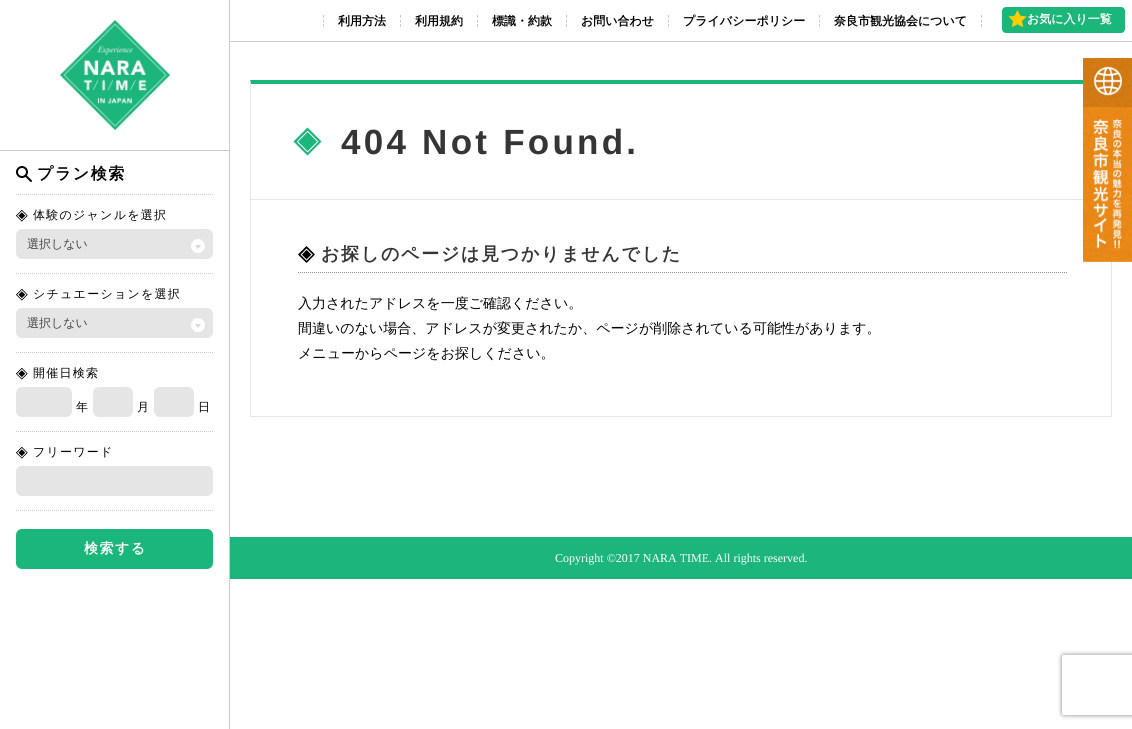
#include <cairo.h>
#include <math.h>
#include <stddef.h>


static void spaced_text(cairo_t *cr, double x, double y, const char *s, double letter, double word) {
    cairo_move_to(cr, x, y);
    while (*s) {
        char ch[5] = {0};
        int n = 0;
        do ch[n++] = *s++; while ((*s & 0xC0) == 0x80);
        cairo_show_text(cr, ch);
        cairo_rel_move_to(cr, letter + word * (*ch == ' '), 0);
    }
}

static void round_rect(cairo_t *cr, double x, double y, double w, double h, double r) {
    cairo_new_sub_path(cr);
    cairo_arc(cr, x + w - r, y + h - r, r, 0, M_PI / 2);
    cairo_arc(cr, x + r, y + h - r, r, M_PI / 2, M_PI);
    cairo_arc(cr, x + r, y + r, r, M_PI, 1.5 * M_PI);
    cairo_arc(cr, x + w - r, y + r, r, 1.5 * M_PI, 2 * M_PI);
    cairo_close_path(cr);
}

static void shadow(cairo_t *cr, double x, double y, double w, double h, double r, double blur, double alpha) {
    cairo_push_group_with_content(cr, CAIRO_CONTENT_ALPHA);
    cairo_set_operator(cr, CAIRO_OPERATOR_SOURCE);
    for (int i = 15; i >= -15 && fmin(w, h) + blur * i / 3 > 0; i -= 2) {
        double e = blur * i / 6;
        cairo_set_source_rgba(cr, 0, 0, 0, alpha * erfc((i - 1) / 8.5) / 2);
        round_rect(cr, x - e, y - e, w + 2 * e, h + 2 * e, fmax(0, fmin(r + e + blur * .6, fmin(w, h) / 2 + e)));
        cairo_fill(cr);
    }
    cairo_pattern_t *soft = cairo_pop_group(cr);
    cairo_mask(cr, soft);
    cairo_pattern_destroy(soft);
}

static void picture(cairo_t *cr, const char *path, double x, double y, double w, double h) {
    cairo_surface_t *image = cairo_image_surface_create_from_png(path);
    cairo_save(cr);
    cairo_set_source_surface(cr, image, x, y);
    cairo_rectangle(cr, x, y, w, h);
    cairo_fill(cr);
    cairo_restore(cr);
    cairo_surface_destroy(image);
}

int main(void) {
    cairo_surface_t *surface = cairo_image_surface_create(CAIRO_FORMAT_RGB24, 1132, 729);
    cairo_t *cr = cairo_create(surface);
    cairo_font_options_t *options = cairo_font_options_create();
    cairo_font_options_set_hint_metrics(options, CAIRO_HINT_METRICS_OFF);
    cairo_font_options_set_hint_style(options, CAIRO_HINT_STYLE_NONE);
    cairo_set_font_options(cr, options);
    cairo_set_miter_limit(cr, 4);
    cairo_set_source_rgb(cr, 1, 1, 1);
    cairo_paint(cr);
    cairo_set_source_rgb(cr, 0.8, 0.8, 0.8);
    cairo_rectangle(cr, 229, 0, 1, 729);
    cairo_fill(cr);
    cairo_rectangle(cr, 0, 150, 229, 1);
    cairo_fill(cr);
    picture(cr, "img1.png", 60, 20, 110, 110);
    picture(cr, "img2.png", 16, 166, 16, 16);
    cairo_new_path(cr);
    cairo_move_to(cr, 16, 194.5);
    cairo_line_to(cr, 213, 194.5);
    cairo_set_line_width(cr, 1);
    cairo_set_dash(cr, (double[]){1, 1}, 2, 0);
    cairo_stroke(cr);
    cairo_select_font_face(cr, "WenQuanYi Zen Hei", CAIRO_FONT_SLANT_NORMAL, CAIRO_FONT_WEIGHT_BOLD);
    cairo_set_font_size(cr, 16);
    cairo_set_source_rgb(cr, 0, 0, 0);
    spaced_text(cr, 37, 179, "プラン検索", 1.5, 0);
    cairo_new_path(cr);
    cairo_move_to(cr, 16, 273.5);
    cairo_line_to(cr, 213, 273.5);
    cairo_set_source_rgb(cr, 0.8, 0.8, 0.8);
    cairo_stroke(cr);
    picture(cr, "img3.png", 16, 210, 12, 12);
    cairo_select_font_face(cr, "WenQuanYi Zen Hei Medium", CAIRO_FONT_SLANT_NORMAL, CAIRO_FONT_WEIGHT_NORMAL);
    cairo_set_font_size(cr, 12);
    cairo_set_source_rgb(cr, 0, 0, 0);
    spaced_text(cr, 33, 219, "体験のジャンルを選択", 1.25, 0);
    cairo_set_source_rgb(cr, 0.898, 0.898, 0.898);
    round_rect(cr, 16, 229, 197, 30, 6);
    cairo_fill(cr);
    cairo_set_source_rgb(cr, 0.267, 0.267, 0.267);
    cairo_move_to(cr, 27, 248);
    cairo_show_text(cr, "選択しない");
    picture(cr, "img4.png", 191, 239, 14, 14);
    cairo_new_path(cr);
    cairo_move_to(cr, 16, 352.5);
    cairo_line_to(cr, 213, 352.5);
    cairo_set_source_rgb(cr, 0.8, 0.8, 0.8);
    cairo_stroke(cr);
    picture(cr, "img3.png", 16, 289, 12, 12);
    cairo_set_source_rgb(cr, 0, 0, 0);
    spaced_text(cr, 33, 298, "シチュエーションを選択", 1.25, 0);
    cairo_set_source_rgb(cr, 0.898, 0.898, 0.898);
    round_rect(cr, 16, 308, 197, 30, 6);
    cairo_fill(cr);
    cairo_set_source_rgb(cr, 0.267, 0.267, 0.267);
    cairo_move_to(cr, 27, 327);
    cairo_show_text(cr, "選択しない");
    picture(cr, "img4.png", 191, 318, 14, 14);
    cairo_new_path(cr);
    cairo_move_to(cr, 16, 431.5);
    cairo_line_to(cr, 213, 431.5);
    cairo_set_source_rgb(cr, 0.8, 0.8, 0.8);
    cairo_stroke(cr);
    picture(cr, "img3.png", 16, 368, 12, 12);
    cairo_set_source_rgb(cr, 0, 0, 0);
    spaced_text(cr, 33, 377, "開催日検索", 1.25, 0);
    cairo_set_source_rgb(cr, 0.898, 0.898, 0.898);
    round_rect(cr, 16, 387, 56, 30, 6);
    cairo_fill(cr);
    cairo_set_source_rgb(cr, 0, 0, 0);
    cairo_move_to(cr, 76, 411);
    cairo_show_text(cr, "年");
    cairo_set_source_rgb(cr, 0.898, 0.898, 0.898);
    round_rect(cr, 93, 387, 40, 30, 6);
    cairo_fill(cr);
    cairo_set_source_rgb(cr, 0, 0, 0);
    cairo_move_to(cr, 137, 411);
    cairo_show_text(cr, "月");
    cairo_set_source_rgb(cr, 0.898, 0.898, 0.898);
    round_rect(cr, 154, 387, 40, 30, 6);
    cairo_fill(cr);
    cairo_set_source_rgb(cr, 0, 0, 0);
    cairo_move_to(cr, 198, 411);
    cairo_show_text(cr, "日");
    cairo_new_path(cr);
    cairo_move_to(cr, 16, 510.5);
    cairo_line_to(cr, 213, 510.5);
    cairo_set_source_rgb(cr, 0.8, 0.8, 0.8);
    cairo_stroke(cr);
    picture(cr, "img3.png", 16, 447, 12, 12);
    cairo_set_source_rgb(cr, 0, 0, 0);
    spaced_text(cr, 33, 456, "フリーワード", 1.25, 0);
    cairo_set_source_rgb(cr, 0.898, 0.898, 0.898);
    round_rect(cr, 16, 466, 197, 30, 6);
    cairo_fill(cr);
    cairo_set_source_rgb(cr, 0.106, 0.714, 0.482);
    round_rect(cr, 16, 529, 197, 40, 6);
    cairo_fill(cr);
    cairo_select_font_face(cr, "WenQuanYi Zen Hei", CAIRO_FONT_SLANT_NORMAL, CAIRO_FONT_WEIGHT_BOLD);
    cairo_set_font_size(cr, 14);
    cairo_set_source_rgb(cr, 1, 1, 1);
    spaced_text(cr, 84, 553, "検索する", 1.5, 0);
    cairo_set_source_rgb(cr, 0.8, 0.8, 0.8);
    cairo_rectangle(cr, 230, 41, 902, 1);
    cairo_fill(cr);
    cairo_new_path(cr);
    cairo_move_to(cr, 400.5, 15);
    cairo_line_to(cr, 400.5, 18);
    cairo_move_to(cr, 400.5, 19.5);
    cairo_line_to(cr, 400.5, 22.5);
    cairo_move_to(cr, 400.5, 24);
    cairo_line_to(cr, 400.5, 27);
    cairo_set_dash(cr, NULL, 0, 0);
    cairo_stroke(cr);
    cairo_new_path(cr);
    cairo_move_to(cr, 323.5, 15);
    cairo_line_to(cr, 323.5, 18);
    cairo_move_to(cr, 323.5, 19.5);
    cairo_line_to(cr, 323.5, 22.5);
    cairo_move_to(cr, 323.5, 24);
    cairo_line_to(cr, 323.5, 27);
    cairo_stroke(cr);
    cairo_set_font_size(cr, 12);
    cairo_set_source_rgb(cr, 0, 0, 0);
    cairo_move_to(cr, 338, 25);
    cairo_show_text(cr, "利用方法");
    cairo_new_path(cr);
    cairo_move_to(cr, 477.5, 15);
    cairo_line_to(cr, 477.5, 18);
    cairo_move_to(cr, 477.5, 19.5);
    cairo_line_to(cr, 477.5, 22.5);
    cairo_move_to(cr, 477.5, 24);
    cairo_line_to(cr, 477.5, 27);
    cairo_set_source_rgb(cr, 0.8, 0.8, 0.8);
    cairo_stroke(cr);
    cairo_set_source_rgb(cr, 0, 0, 0);
    cairo_move_to(cr, 415, 25);
    cairo_show_text(cr, "利用規約");
    cairo_new_path(cr);
    cairo_move_to(cr, 566.5, 15);
    cairo_line_to(cr, 566.5, 18);
    cairo_move_to(cr, 566.5, 19.5);
    cairo_line_to(cr, 566.5, 22.5);
    cairo_move_to(cr, 566.5, 24);
    cairo_line_to(cr, 566.5, 27);
    cairo_set_source_rgb(cr, 0.8, 0.8, 0.8);
    cairo_stroke(cr);
    cairo_set_source_rgb(cr, 0, 0, 0);
    cairo_move_to(cr, 492, 25);
    cairo_show_text(cr, "標識・約款");
    cairo_new_path(cr);
    cairo_move_to(cr, 668.5, 15);
    cairo_line_to(cr, 668.5, 18);
    cairo_move_to(cr, 668.5, 19.5);
    cairo_line_to(cr, 668.5, 22.5);
    cairo_move_to(cr, 668.5, 24);
    cairo_line_to(cr, 668.5, 27);
    cairo_set_source_rgb(cr, 0.8, 0.8, 0.8);
    cairo_stroke(cr);
    cairo_set_source_rgb(cr, 0, 0, 0);
    cairo_move_to(cr, 581, 25);
    cairo_show_text(cr, "お問い合わせ");
    cairo_new_path(cr);
    cairo_move_to(cr, 819.5, 15);
    cairo_line_to(cr, 819.5, 18);
    cairo_move_to(cr, 819.5, 19.5);
    cairo_line_to(cr, 819.5, 22.5);
    cairo_move_to(cr, 819.5, 24);
    cairo_line_to(cr, 819.5, 27);
    cairo_set_source_rgb(cr, 0.8, 0.8, 0.8);
    cairo_stroke(cr);
    cairo_set_source_rgb(cr, 0, 0, 0);
    cairo_move_to(cr, 683, 25);
    cairo_show_text(cr, "プライバシーポリシー");
    cairo_new_path(cr);
    cairo_move_to(cr, 981.5, 15);
    cairo_line_to(cr, 981.5, 18);
    cairo_move_to(cr, 981.5, 19.5);
    cairo_line_to(cr, 981.5, 22.5);
    cairo_move_to(cr, 981.5, 24);
    cairo_line_to(cr, 981.5, 27);
    cairo_set_source_rgb(cr, 0.8, 0.8, 0.8);
    cairo_stroke(cr);
    cairo_set_source_rgb(cr, 0, 0, 0);
    cairo_move_to(cr, 834, 25);
    cairo_show_text(cr, "奈良市観光協会について");
    cairo_set_source_rgb(cr, 0.106, 0.714, 0.478);
    round_rect(cr, 1002, 7, 123, 26, 4);
    cairo_fill(cr);
    picture(cr, "img5.png", 1008, 10, 19, 17);
    cairo_set_source_rgb(cr, 1, 1, 1);
    cairo_move_to(cr, 1027, 23);
    cairo_show_text(cr, "お気に入り一覧");
    cairo_set_source_rgb(cr, 0.106, 0.714, 0.478);
    cairo_new_path(cr);
    cairo_move_to(cr, 250, 80);
    cairo_line_to(cr, 1112, 80);
    cairo_line_to(cr, 1111, 84);
    cairo_line_to(cr, 251, 84);
    cairo_close_path(cr);
    cairo_fill(cr);
    cairo_set_source_rgb(cr, 0.898, 0.898, 0.898);
    cairo_new_path(cr);
    cairo_move_to(cr, 1112, 80);
    cairo_line_to(cr, 1112, 417);
    cairo_line_to(cr, 1111, 416);
    cairo_line_to(cr, 1111, 84);
    cairo_close_path(cr);
    cairo_fill(cr);
    picture(cr, "img6.png", 1083, 58, 49, 204);
    cairo_rectangle(cr, 250, 416, 862, 1);
    cairo_fill(cr);
    cairo_new_path(cr);
    cairo_move_to(cr, 250, 417);
    cairo_line_to(cr, 250, 80);
    cairo_line_to(cr, 251, 84);
    cairo_line_to(cr, 251, 416);
    cairo_close_path(cr);
    cairo_fill(cr);
    picture(cr, "img7.png", 293, 127, 29, 29);
    cairo_select_font_face(cr, "Liberation Sans", CAIRO_FONT_SLANT_NORMAL, CAIRO_FONT_WEIGHT_BOLD);
    cairo_set_font_size(cr, 35);
    cairo_set_source_rgb(cr, 0.208, 0.208, 0.208);
    spaced_text(cr, 341, 154, "404 Not Found.", 3.25, 0);
    cairo_set_source_rgb(cr, 0.898, 0.898, 0.898);
    cairo_rectangle(cr, 251, 199, 832, 1);
    cairo_fill(cr);
    cairo_new_path(cr);
    cairo_move_to(cr, 298, 272.5);
    cairo_line_to(cr, 1068, 272.5);
    cairo_set_source_rgb(cr, 0.573, 0.573, 0.573);
    cairo_set_dash(cr, (double[]){1, 1}, 2, 0);
    cairo_stroke(cr);
    picture(cr, "img8.png", 298, 246, 17, 17);
    cairo_select_font_face(cr, "WenQuanYi Zen Hei", CAIRO_FONT_SLANT_NORMAL, CAIRO_FONT_WEIGHT_BOLD);
    cairo_set_font_size(cr, 18);
    cairo_set_source_rgb(cr, 0.208, 0.208, 0.208);
    spaced_text(cr, 321, 260, "お探しのページは見つかりませんでした", 1.7, 0);
    cairo_select_font_face(cr, "WenQuanYi Zen Hei Medium", CAIRO_FONT_SLANT_NORMAL, CAIRO_FONT_WEIGHT_NORMAL);
    cairo_set_font_size(cr, 14);
    cairo_set_source_rgb(cr, 0, 0, 0);
    cairo_move_to(cr, 298, 308);
    cairo_show_text(cr, "入力されたアドレスを一度ご確認ください。");
    cairo_move_to(cr, 298, 333);
    cairo_show_text(cr, "間違いのない場合、アドレスが変更されたか、ページが削除されている可能性があります。");
    cairo_move_to(cr, 298, 358);
    cairo_show_text(cr, "メニューからページをお探しください。");
    cairo_set_source_rgb(cr, 0.11, 0.71, 0.482);
    cairo_rectangle(cr, 230, 537, 902, 42);
    cairo_fill(cr);
    cairo_select_font_face(cr, "Liberation Serif", CAIRO_FONT_SLANT_NORMAL, CAIRO_FONT_WEIGHT_NORMAL);
    cairo_set_font_size(cr, 12);
    cairo_set_source_rgb(cr, 1, 1, 1);
    cairo_move_to(cr, 555, 562);
    cairo_show_text(cr, "Copyright ©2017 NARA TIME. All rights reserved.");
    cairo_save(cr);
    cairo_set_fill_rule(cr, CAIRO_FILL_RULE_EVEN_ODD);
    cairo_new_path(cr);
    cairo_move_to(cr, 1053, 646);
    cairo_line_to(cr, 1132, 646);
    cairo_line_to(cr, 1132, 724);
    cairo_line_to(cr, 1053, 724);
    cairo_close_path(cr);
    cairo_move_to(cr, 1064, 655);
    cairo_line_to(cr, 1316, 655);
    cairo_curve_to(cr, 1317, 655, 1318, 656, 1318, 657);
    cairo_line_to(cr, 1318, 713);
    cairo_curve_to(cr, 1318, 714, 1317, 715, 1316, 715);
    cairo_line_to(cr, 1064, 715);
    cairo_curve_to(cr, 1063, 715, 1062, 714, 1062, 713);
    cairo_line_to(cr, 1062, 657);
    cairo_curve_to(cr, 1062, 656, 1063, 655, 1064, 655);
    cairo_close_path(cr);
    cairo_clip(cr);
    cairo_set_source_rgb(cr, 0.502, 0.502, 0.502);
    shadow(cr, 1062, 655, 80, 60, 2, 2.5, 1);
    cairo_restore(cr);
    cairo_surface_write_to_png(surface, "page.png");
    cairo_font_options_destroy(options);
    cairo_destroy(cr);
    cairo_surface_destroy(surface);
    return 0;
}
